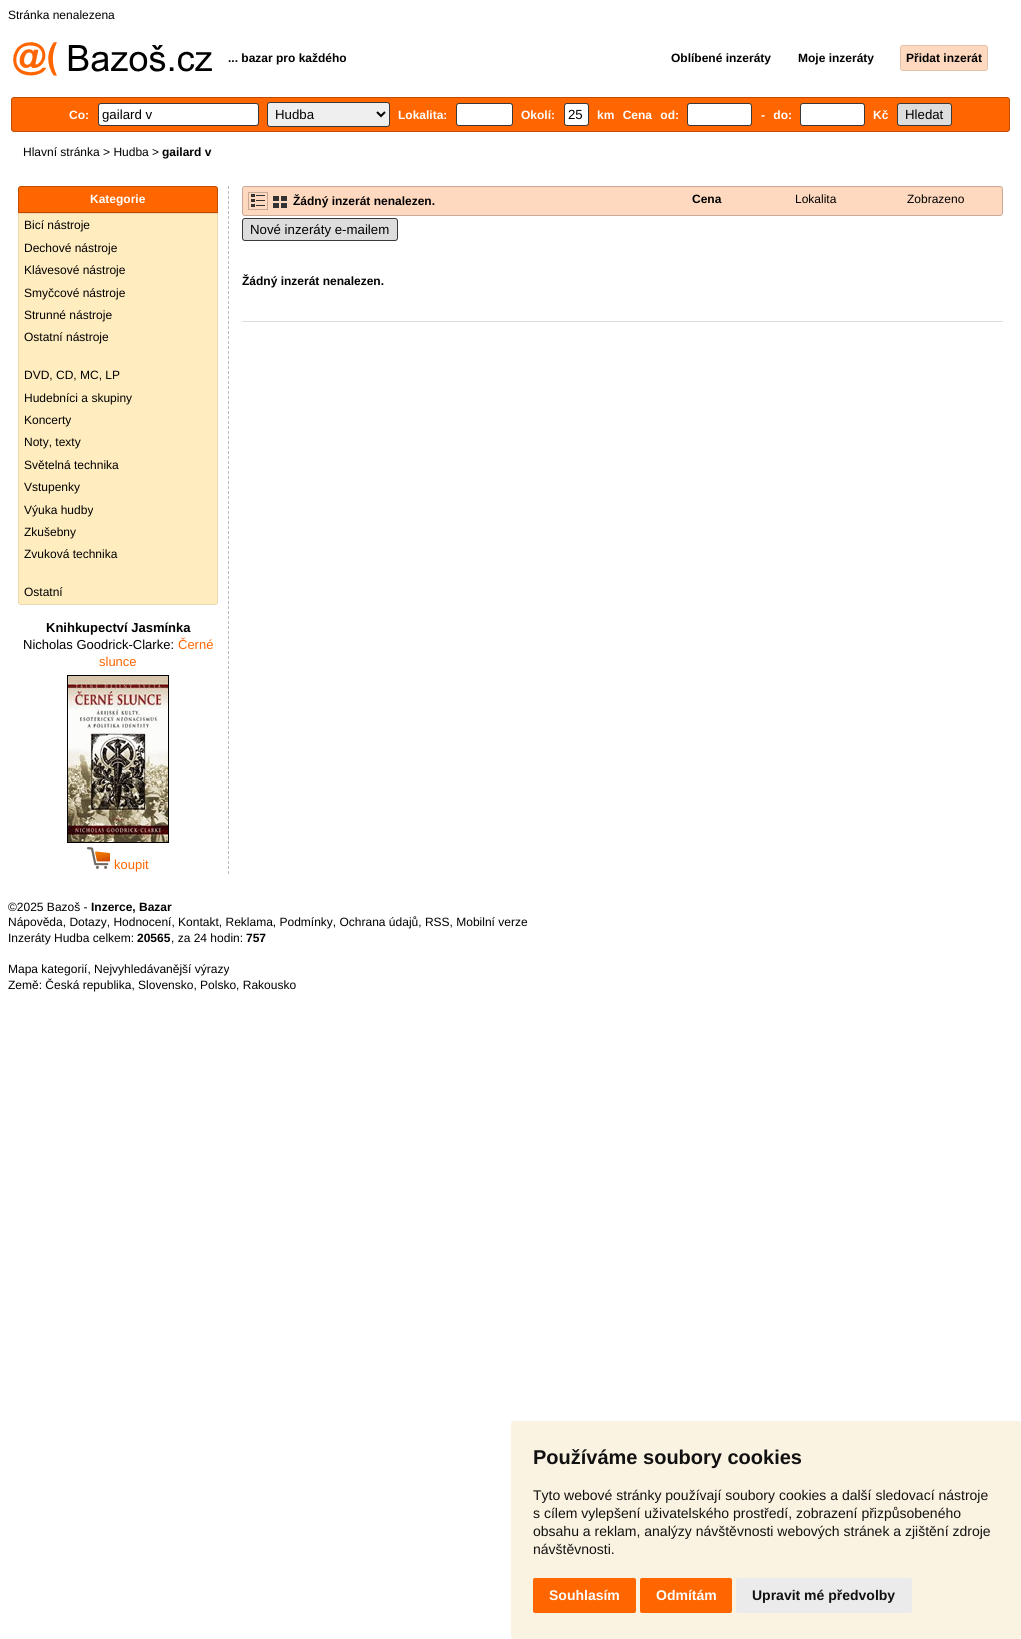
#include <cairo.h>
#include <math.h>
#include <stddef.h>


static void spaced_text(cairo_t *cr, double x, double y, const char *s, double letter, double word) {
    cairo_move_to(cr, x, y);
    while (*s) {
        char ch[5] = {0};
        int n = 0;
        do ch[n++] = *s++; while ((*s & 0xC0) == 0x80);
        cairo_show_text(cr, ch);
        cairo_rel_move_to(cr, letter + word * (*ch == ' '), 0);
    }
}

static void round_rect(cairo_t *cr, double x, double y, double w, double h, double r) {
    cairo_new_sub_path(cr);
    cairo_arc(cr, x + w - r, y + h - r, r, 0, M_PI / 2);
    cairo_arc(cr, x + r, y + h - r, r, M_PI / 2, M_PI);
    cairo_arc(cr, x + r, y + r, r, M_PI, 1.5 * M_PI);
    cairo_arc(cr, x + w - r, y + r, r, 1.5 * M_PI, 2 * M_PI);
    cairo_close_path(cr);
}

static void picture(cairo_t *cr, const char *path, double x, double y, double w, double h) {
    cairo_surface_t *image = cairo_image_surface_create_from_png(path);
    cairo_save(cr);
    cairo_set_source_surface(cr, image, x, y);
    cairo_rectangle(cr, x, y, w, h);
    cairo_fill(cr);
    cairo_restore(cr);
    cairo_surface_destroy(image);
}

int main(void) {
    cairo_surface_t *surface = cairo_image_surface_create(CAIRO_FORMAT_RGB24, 1021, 1639);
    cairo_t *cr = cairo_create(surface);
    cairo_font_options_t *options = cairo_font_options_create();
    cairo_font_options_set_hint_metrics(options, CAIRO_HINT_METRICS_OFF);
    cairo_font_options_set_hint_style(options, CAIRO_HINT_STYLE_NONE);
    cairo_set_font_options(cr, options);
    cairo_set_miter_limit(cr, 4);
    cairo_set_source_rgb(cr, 1, 1, 1);
    cairo_paint(cr);
    cairo_select_font_face(cr, "Liberation Sans", CAIRO_FONT_SLANT_NORMAL, CAIRO_FONT_WEIGHT_NORMAL);
    cairo_set_font_size(cr, 12);
    cairo_set_source_rgb(cr, 0, 0, 0);
    cairo_move_to(cr, 8, 19);
    cairo_show_text(cr, "Stránka nenalezena");
    picture(cr, "img1.png", 13, 42, 199, 34);
    cairo_select_font_face(cr, "Liberation Sans", CAIRO_FONT_SLANT_NORMAL, CAIRO_FONT_WEIGHT_BOLD);
    cairo_move_to(cr, 228, 62);
    cairo_show_text(cr, "... bazar pro každého");
    cairo_move_to(cr, 671, 62);
    cairo_show_text(cr, "Oblíbené inzeráty");
    cairo_move_to(cr, 798, 62);
    cairo_show_text(cr, "Moje inzeráty");
    cairo_set_source_rgb(cr, 1, 0.851, 0.749);
    round_rect(cr, 900.5, 45.5, 87, 25, 2.5);
    cairo_fill_preserve(cr);
    cairo_set_source_rgb(cr, 0.894, 0.761, 0.671);
    cairo_set_line_width(cr, 1);
    cairo_stroke(cr);
    cairo_set_source_rgb(cr, 0, 0, 0);
    cairo_move_to(cr, 906, 62);
    cairo_show_text(cr, "Přidat inzerát");
    cairo_set_source_rgb(cr, 1, 0.4, 0);
    round_rect(cr, 11.5, 97.5, 998, 34, 2.5);
    cairo_fill_preserve(cr);
    cairo_set_source_rgb(cr, 0.749, 0.298, 0);
    cairo_stroke(cr);
    cairo_set_source_rgb(cr, 1, 1, 1);
    cairo_move_to(cr, 69, 119);
    cairo_show_text(cr, "Co:");
    round_rect(cr, 98.5, 103.5, 160, 22, 2.5);
    cairo_fill_preserve(cr);
    cairo_set_source_rgb(cr, 0.224, 0.224, 0.224);
    cairo_stroke(cr);
    cairo_select_font_face(cr, "Liberation Sans", CAIRO_FONT_SLANT_NORMAL, CAIRO_FONT_WEIGHT_NORMAL);
    cairo_set_font_size(cr, 13.25);
    cairo_set_source_rgb(cr, 0, 0, 0);
    cairo_move_to(cr, 102, 119);
    cairo_show_text(cr, "gailard v");
    cairo_set_source_rgb(cr, 0.937, 0.937, 0.937);
    round_rect(cr, 267.5, 102.5, 122, 24, 2.5);
    cairo_fill_preserve(cr);
    cairo_set_source_rgb(cr, 0.224, 0.224, 0.224);
    cairo_stroke(cr);
    cairo_new_path(cr);
    cairo_move_to(cr, 377, 112);
    cairo_line_to(cr, 381, 116);
    cairo_line_to(cr, 385, 112);
    cairo_set_source_rgb(cr, 0, 0, 0);
    cairo_set_line_width(cr, 2);
    cairo_stroke(cr);
    cairo_move_to(cr, 275, 119);
    cairo_show_text(cr, "Hudba");
    cairo_select_font_face(cr, "Liberation Sans", CAIRO_FONT_SLANT_NORMAL, CAIRO_FONT_WEIGHT_BOLD);
    cairo_set_font_size(cr, 12);
    cairo_set_source_rgb(cr, 1, 1, 1);
    cairo_move_to(cr, 398, 119);
    cairo_show_text(cr, "Lokalita:");
    round_rect(cr, 456.5, 103.5, 56, 22, 2.5);
    cairo_fill_preserve(cr);
    cairo_set_source_rgb(cr, 0.224, 0.224, 0.224);
    cairo_set_line_width(cr, 1);
    cairo_stroke(cr);
    cairo_set_source_rgb(cr, 1, 1, 1);
    cairo_move_to(cr, 521, 119);
    cairo_show_text(cr, "Okolí:");
    round_rect(cr, 564.5, 103.5, 24, 22, 2.5);
    cairo_fill_preserve(cr);
    cairo_set_source_rgb(cr, 0.224, 0.224, 0.224);
    cairo_stroke(cr);
    cairo_select_font_face(cr, "Liberation Sans", CAIRO_FONT_SLANT_NORMAL, CAIRO_FONT_WEIGHT_NORMAL);
    cairo_set_font_size(cr, 13.25);
    cairo_set_source_rgb(cr, 0, 0, 0);
    cairo_move_to(cr, 568, 119);
    cairo_show_text(cr, "25");
    cairo_select_font_face(cr, "Liberation Sans", CAIRO_FONT_SLANT_NORMAL, CAIRO_FONT_WEIGHT_BOLD);
    cairo_set_font_size(cr, 12);
    cairo_set_source_rgb(cr, 1, 1, 1);
    spaced_text(cr, 597, 119, "km Cena od:", 0, 5);
    round_rect(cr, 687.5, 103.5, 64, 22, 2.5);
    cairo_fill_preserve(cr);
    cairo_set_source_rgb(cr, 0.224, 0.224, 0.224);
    cairo_stroke(cr);
    cairo_set_source_rgb(cr, 1, 1, 1);
    spaced_text(cr, 761, 119, "- do:", 0, 5);
    round_rect(cr, 800.5, 103.5, 64, 22, 2.5);
    cairo_fill_preserve(cr);
    cairo_set_source_rgb(cr, 0.224, 0.224, 0.224);
    cairo_stroke(cr);
    cairo_set_source_rgb(cr, 1, 1, 1);
    cairo_move_to(cr, 873, 119);
    cairo_show_text(cr, "Kč");
    cairo_set_source_rgb(cr, 0.867, 0.867, 0.867);
    round_rect(cr, 897.5, 103.5, 54, 22, 2.5);
    cairo_fill_preserve(cr);
    cairo_set_source_rgb(cr, 0.224, 0.224, 0.224);
    cairo_stroke(cr);
    cairo_select_font_face(cr, "Liberation Sans", CAIRO_FONT_SLANT_NORMAL, CAIRO_FONT_WEIGHT_NORMAL);
    cairo_set_font_size(cr, 13.25);
    cairo_set_source_rgb(cr, 0, 0, 0);
    cairo_move_to(cr, 905, 119);
    cairo_show_text(cr, "Hledat");
    cairo_set_font_size(cr, 12);
    cairo_move_to(cr, 23, 156);
    cairo_show_text(cr, "Hlavní stránka > Hudba >");
    cairo_select_font_face(cr, "Liberation Sans", CAIRO_FONT_SLANT_NORMAL, CAIRO_FONT_WEIGHT_BOLD);
    cairo_move_to(cr, 162, 156);
    cairo_show_text(cr, "gailard v");
    cairo_new_path(cr);
    cairo_move_to(cr, 228.5, 186);
    cairo_line_to(cr, 228.5, 874);
    cairo_set_source_rgb(cr, 0.733, 0.733, 0.733);
    cairo_set_dash(cr, (double[]){3, 2}, 2, 0);
    cairo_stroke(cr);
    cairo_set_source_rgb(cr, 1, 0.4, 0);
    cairo_new_path(cr);
    cairo_move_to(cr, 21, 186.5);
    cairo_line_to(cr, 215, 186.5);
    cairo_curve_to(cr, 216.5, 186.5, 217.5, 187.5, 217.5, 189);
    cairo_line_to(cr, 217.5, 212.5);
    cairo_line_to(cr, 18.5, 212.5);
    cairo_line_to(cr, 18.5, 189);
    cairo_curve_to(cr, 18.5, 187.5, 19.5, 186.5, 21, 186.5);
    cairo_close_path(cr);
    cairo_fill_preserve(cr);
    cairo_set_source_rgb(cr, 0.749, 0.298, 0);
    cairo_set_dash(cr, NULL, 0, 0);
    cairo_stroke(cr);
    cairo_set_source_rgb(cr, 1, 1, 1);
    cairo_move_to(cr, 90, 203);
    cairo_show_text(cr, "Kategorie");
    cairo_set_source_rgb(cr, 1, 0.925, 0.749);
    cairo_new_path(cr);
    cairo_move_to(cr, 18.5, 213.5);
    cairo_line_to(cr, 217.5, 213.5);
    cairo_line_to(cr, 217.5, 602);
    cairo_curve_to(cr, 217.5, 603.5, 216.5, 604.5, 215, 604.5);
    cairo_line_to(cr, 21, 604.5);
    cairo_curve_to(cr, 19.5, 604.5, 18.5, 603.5, 18.5, 602);
    cairo_close_path(cr);
    cairo_fill_preserve(cr);
    cairo_set_source_rgb(cr, 0.922, 0.851, 0.69);
    cairo_stroke(cr);
    cairo_select_font_face(cr, "Liberation Sans", CAIRO_FONT_SLANT_NORMAL, CAIRO_FONT_WEIGHT_NORMAL);
    cairo_set_source_rgb(cr, 0, 0, 0);
    cairo_move_to(cr, 24, 229);
    cairo_show_text(cr, "Bicí nástroje");
    cairo_move_to(cr, 24, 252);
    cairo_show_text(cr, "Dechové nástroje");
    cairo_move_to(cr, 24, 274);
    cairo_show_text(cr, "Klávesové nástroje");
    cairo_move_to(cr, 24, 297);
    cairo_show_text(cr, "Smyčcové nástroje");
    cairo_move_to(cr, 24, 319);
    cairo_show_text(cr, "Strunné nástroje");
    cairo_move_to(cr, 24, 341);
    cairo_show_text(cr, "Ostatní nástroje");
    cairo_move_to(cr, 24, 379);
    cairo_show_text(cr, "DVD, CD, MC, LP");
    cairo_move_to(cr, 24, 402);
    cairo_show_text(cr, "Hudebníci a skupiny");
    cairo_move_to(cr, 24, 424);
    cairo_show_text(cr, "Koncerty");
    cairo_move_to(cr, 24, 446);
    cairo_show_text(cr, "Noty, texty");
    cairo_move_to(cr, 24, 469);
    cairo_show_text(cr, "Světelná technika");
    cairo_move_to(cr, 24, 491);
    cairo_show_text(cr, "Vstupenky");
    cairo_move_to(cr, 24, 514);
    cairo_show_text(cr, "Výuka hudby");
    cairo_move_to(cr, 24, 536);
    cairo_show_text(cr, "Zkušebny");
    cairo_move_to(cr, 24, 558);
    cairo_show_text(cr, "Zvuková technika");
    cairo_move_to(cr, 24, 596);
    cairo_show_text(cr, "Ostatní");
    cairo_select_font_face(cr, "Liberation Sans", CAIRO_FONT_SLANT_NORMAL, CAIRO_FONT_WEIGHT_BOLD);
    cairo_set_font_size(cr, 13);
    cairo_move_to(cr, 46, 632);
    cairo_show_text(cr, "Knihkupectví Jasmínka");
    cairo_select_font_face(cr, "Liberation Sans", CAIRO_FONT_SLANT_NORMAL, CAIRO_FONT_WEIGHT_NORMAL);
    cairo_move_to(cr, 23, 649);
    cairo_show_text(cr, "Nicholas Goodrick-Clarke:");
    cairo_set_source_rgb(cr, 1, 0.4, 0);
    cairo_move_to(cr, 178, 649);
    cairo_show_text(cr, "Černé");
    cairo_move_to(cr, 99, 666);
    cairo_show_text(cr, "slunce");
    cairo_rectangle(cr, 67.5, 675.5, 101, 167);
    cairo_set_source_rgb(cr, 0, 0, 0);
    cairo_stroke(cr);
    picture(cr, "img2.png", 68, 676, 100, 166);
    picture(cr, "img3.png", 87, 847, 23, 22);
    cairo_set_source_rgb(cr, 1, 0.4, 0);
    cairo_move_to(cr, 114, 869);
    cairo_show_text(cr, "koupit");
    cairo_set_source_rgb(cr, 1, 0.851, 0.749);
    round_rect(cr, 242.5, 186.5, 760, 29, 2.5);
    cairo_fill_preserve(cr);
    cairo_set_source_rgb(cr, 0.78, 0.663, 0.584);
    cairo_stroke(cr);
    cairo_rectangle(cr, 248.5, 192.5, 19, 17);
    cairo_stroke(cr);
    picture(cr, "img4.png", 251, 194, 14, 13);
    picture(cr, "img5.png", 273, 196, 14, 12);
    cairo_select_font_face(cr, "Liberation Sans", CAIRO_FONT_SLANT_NORMAL, CAIRO_FONT_WEIGHT_BOLD);
    cairo_set_font_size(cr, 12);
    cairo_set_source_rgb(cr, 0, 0, 0);
    cairo_move_to(cr, 293, 205);
    cairo_show_text(cr, "Žádný inzerát nenalezen.");
    cairo_move_to(cr, 692, 203);
    cairo_show_text(cr, "Cena");
    cairo_select_font_face(cr, "Liberation Sans", CAIRO_FONT_SLANT_NORMAL, CAIRO_FONT_WEIGHT_NORMAL);
    cairo_move_to(cr, 795, 203);
    cairo_show_text(cr, "Lokalita");
    cairo_move_to(cr, 907, 203);
    cairo_show_text(cr, "Zobrazeno");
    cairo_set_source_rgb(cr, 0.867, 0.867, 0.867);
    round_rect(cr, 242.5, 218.5, 155, 22, 2.5);
    cairo_fill_preserve(cr);
    cairo_set_source_rgb(cr, 0.224, 0.224, 0.224);
    cairo_stroke(cr);
    cairo_set_font_size(cr, 13.25);
    cairo_set_source_rgb(cr, 0, 0, 0);
    cairo_move_to(cr, 250, 234);
    cairo_show_text(cr, "Nové inzeráty e-mailem");
    cairo_select_font_face(cr, "Liberation Sans", CAIRO_FONT_SLANT_NORMAL, CAIRO_FONT_WEIGHT_BOLD);
    cairo_set_font_size(cr, 12);
    cairo_move_to(cr, 242, 285);
    cairo_show_text(cr, "Žádný inzerát nenalezen.");
    cairo_set_source_rgb(cr, 0.867, 0.867, 0.867);
    cairo_rectangle(cr, 242, 321, 761, 1);
    cairo_fill(cr);
    cairo_select_font_face(cr, "Liberation Sans", CAIRO_FONT_SLANT_NORMAL, CAIRO_FONT_WEIGHT_NORMAL);
    cairo_set_source_rgb(cr, 0, 0, 0);
    cairo_move_to(cr, 8, 911);
    cairo_show_text(cr, "©2025 Bazoš -");
    cairo_select_font_face(cr, "Liberation Sans", CAIRO_FONT_SLANT_NORMAL, CAIRO_FONT_WEIGHT_BOLD);
    cairo_move_to(cr, 91, 911);
    cairo_show_text(cr, "Inzerce, Bazar");
    cairo_select_font_face(cr, "Liberation Sans", CAIRO_FONT_SLANT_NORMAL, CAIRO_FONT_WEIGHT_NORMAL);
    cairo_move_to(cr, 8, 926);
    cairo_show_text(cr, "Nápověda, Dotazy, Hodnocení, Kontakt, Reklama, Podmínky, Ochrana údajů, RSS, Mobilní verze");
    cairo_move_to(cr, 8, 942);
    cairo_show_text(cr, "Inzeráty Hudba celkem:");
    cairo_select_font_face(cr, "Liberation Sans", CAIRO_FONT_SLANT_NORMAL, CAIRO_FONT_WEIGHT_BOLD);
    cairo_move_to(cr, 137, 942);
    cairo_show_text(cr, "20565");
    cairo_select_font_face(cr, "Liberation Sans", CAIRO_FONT_SLANT_NORMAL, CAIRO_FONT_WEIGHT_NORMAL);
    cairo_move_to(cr, 171, 942);
    cairo_show_text(cr, ", za 24 hodin:");
    cairo_select_font_face(cr, "Liberation Sans", CAIRO_FONT_SLANT_NORMAL, CAIRO_FONT_WEIGHT_BOLD);
    cairo_move_to(cr, 246, 942);
    cairo_show_text(cr, "757");
    cairo_select_font_face(cr, "Liberation Sans", CAIRO_FONT_SLANT_NORMAL, CAIRO_FONT_WEIGHT_NORMAL);
    cairo_move_to(cr, 8, 973);
    cairo_show_text(cr, "Mapa kategorií, Nejvyhledávanější výrazy");
    cairo_move_to(cr, 8, 989);
    cairo_show_text(cr, "Země: Česká republika, Slovensko, Polsko, Rakousko");
    cairo_set_source_rgb(cr, 0.984, 0.953, 0.882);
    round_rect(cr, 511, 1421, 510, 218, 3);
    cairo_fill(cr);
    cairo_select_font_face(cr, "Liberation Sans", CAIRO_FONT_SLANT_NORMAL, CAIRO_FONT_WEIGHT_BOLD);
    cairo_set_font_size(cr, 20);
    cairo_set_source_rgb(cr, 0.067, 0.067, 0.067);
    cairo_move_to(cr, 533, 1464);
    cairo_show_text(cr, "Používáme soubory cookies");
    cairo_select_font_face(cr, "Liberation Sans", CAIRO_FONT_SLANT_NORMAL, CAIRO_FONT_WEIGHT_NORMAL);
    cairo_set_font_size(cr, 14);
    cairo_move_to(cr, 533, 1500);
    cairo_show_text(cr, "Tyto webové stránky používají soubory cookies a další sledovací nástroje");
    cairo_move_to(cr, 533, 1518);
    cairo_show_text(cr, "s cílem vylepšení uživatelského prostředí, zobrazení přizpůsobeného");
    cairo_move_to(cr, 533, 1536);
    cairo_show_text(cr, "obsahu a reklam, analýzy návštěvnosti webových stránek a zjištění zdroje");
    cairo_move_to(cr, 533, 1554);
    cairo_show_text(cr, "návštěvnosti.");
    cairo_set_source_rgb(cr, 1, 0.4, 0);
    round_rect(cr, 533, 1578, 103, 35, 2);
    cairo_fill(cr);
    cairo_select_font_face(cr, "Liberation Sans", CAIRO_FONT_SLANT_NORMAL, CAIRO_FONT_WEIGHT_BOLD);
    cairo_set_source_rgb(cr, 1, 1, 1);
    cairo_move_to(cr, 549, 1600);
    cairo_show_text(cr, "Souhlasím");
    cairo_set_source_rgb(cr, 1, 0.4, 0);
    round_rect(cr, 640, 1578, 92, 35, 2);
    cairo_fill(cr);
    cairo_set_source_rgb(cr, 1, 1, 1);
    cairo_move_to(cr, 656, 1600);
    cairo_show_text(cr, "Odmítám");
    cairo_set_source_rgb(cr, 0.918, 0.918, 0.918);
    round_rect(cr, 736, 1578, 176, 35, 2);
    cairo_fill(cr);
    cairo_set_source_rgb(cr, 0.067, 0.067, 0.067);
    cairo_move_to(cr, 752, 1600);
    cairo_show_text(cr, "Upravit mé předvolby");
    cairo_surface_write_to_png(surface, "page.png");
    cairo_font_options_destroy(options);
    cairo_destroy(cr);
    cairo_surface_destroy(surface);
    return 0;
}
